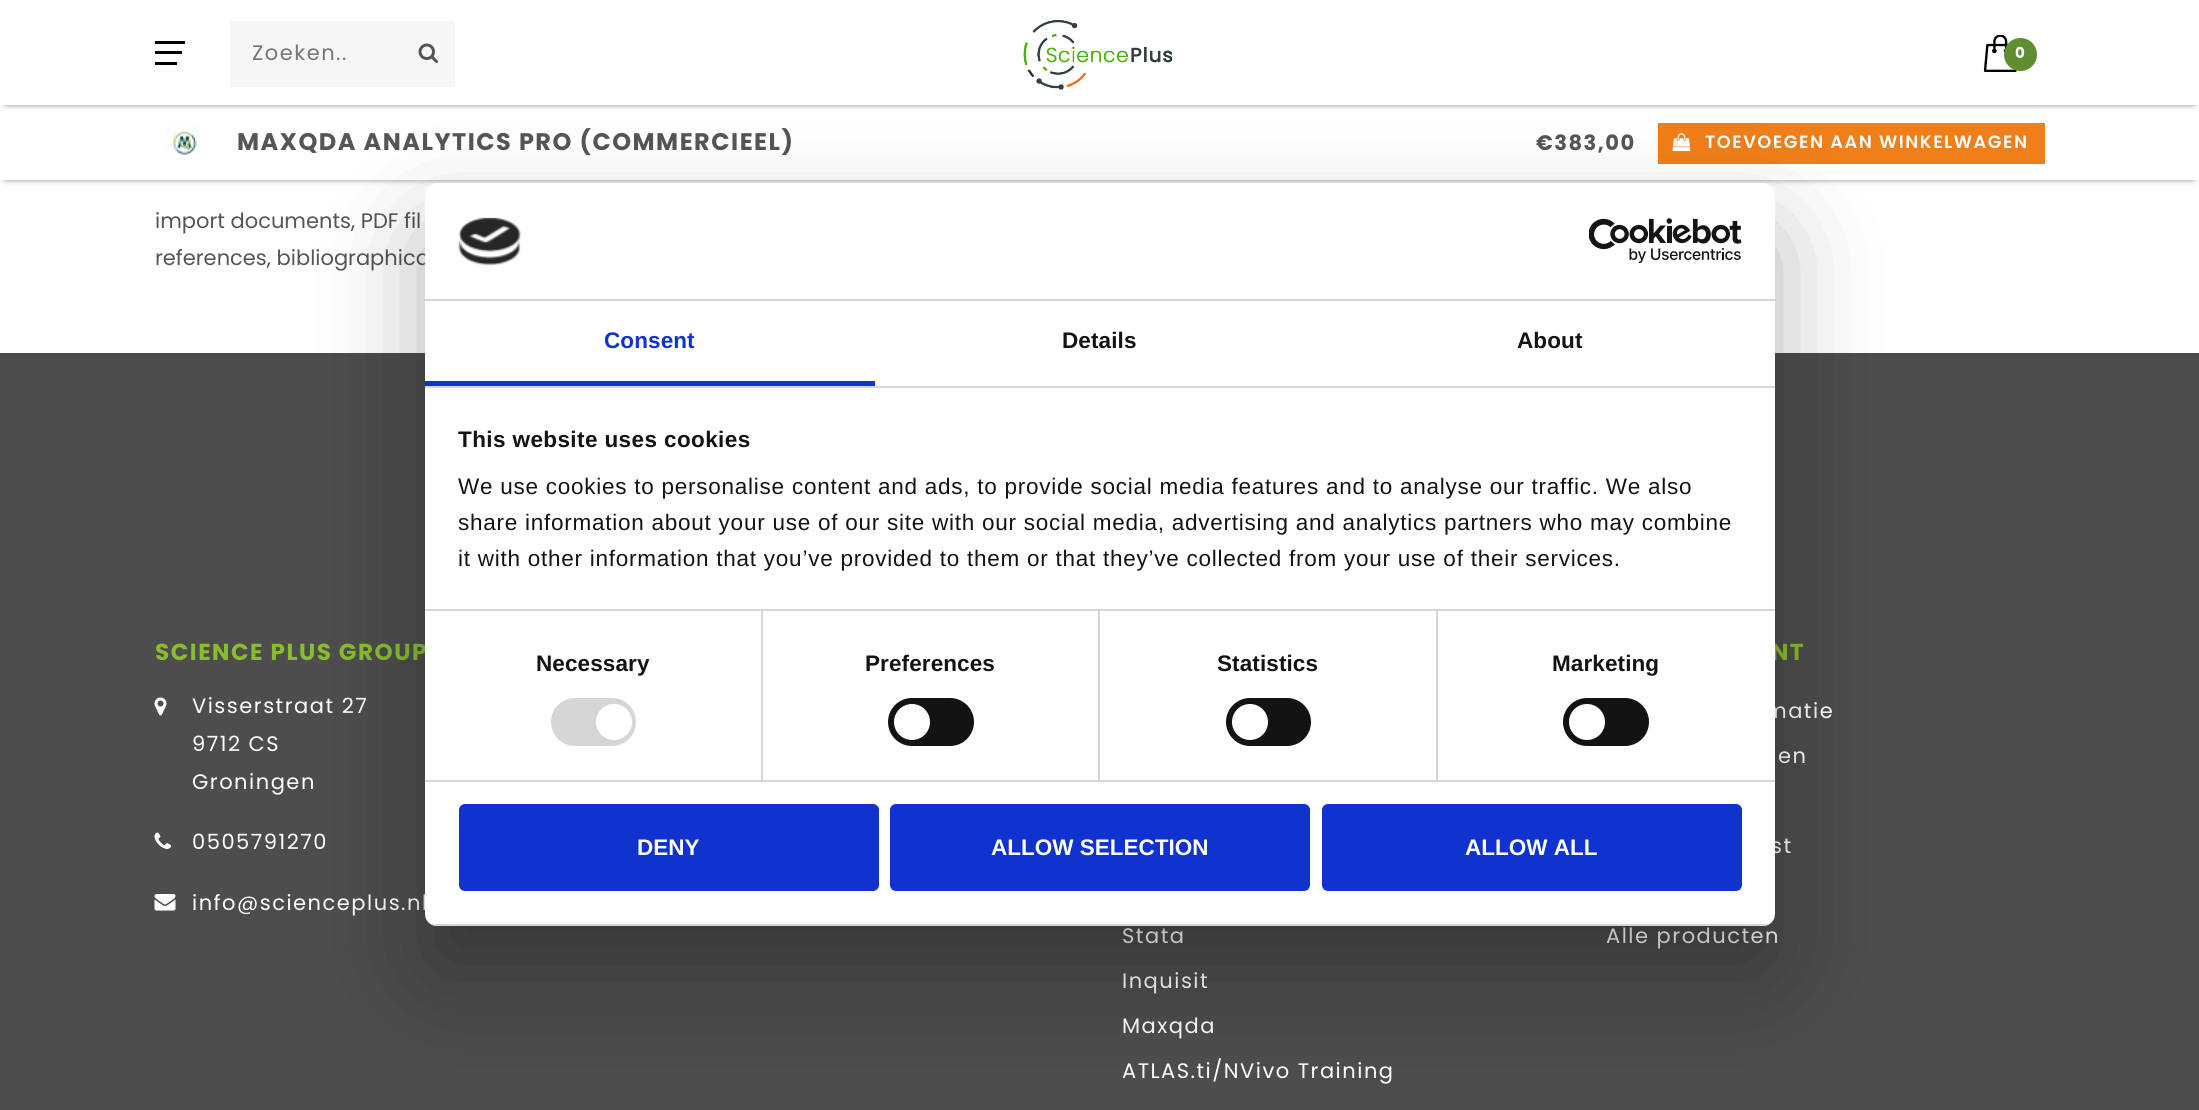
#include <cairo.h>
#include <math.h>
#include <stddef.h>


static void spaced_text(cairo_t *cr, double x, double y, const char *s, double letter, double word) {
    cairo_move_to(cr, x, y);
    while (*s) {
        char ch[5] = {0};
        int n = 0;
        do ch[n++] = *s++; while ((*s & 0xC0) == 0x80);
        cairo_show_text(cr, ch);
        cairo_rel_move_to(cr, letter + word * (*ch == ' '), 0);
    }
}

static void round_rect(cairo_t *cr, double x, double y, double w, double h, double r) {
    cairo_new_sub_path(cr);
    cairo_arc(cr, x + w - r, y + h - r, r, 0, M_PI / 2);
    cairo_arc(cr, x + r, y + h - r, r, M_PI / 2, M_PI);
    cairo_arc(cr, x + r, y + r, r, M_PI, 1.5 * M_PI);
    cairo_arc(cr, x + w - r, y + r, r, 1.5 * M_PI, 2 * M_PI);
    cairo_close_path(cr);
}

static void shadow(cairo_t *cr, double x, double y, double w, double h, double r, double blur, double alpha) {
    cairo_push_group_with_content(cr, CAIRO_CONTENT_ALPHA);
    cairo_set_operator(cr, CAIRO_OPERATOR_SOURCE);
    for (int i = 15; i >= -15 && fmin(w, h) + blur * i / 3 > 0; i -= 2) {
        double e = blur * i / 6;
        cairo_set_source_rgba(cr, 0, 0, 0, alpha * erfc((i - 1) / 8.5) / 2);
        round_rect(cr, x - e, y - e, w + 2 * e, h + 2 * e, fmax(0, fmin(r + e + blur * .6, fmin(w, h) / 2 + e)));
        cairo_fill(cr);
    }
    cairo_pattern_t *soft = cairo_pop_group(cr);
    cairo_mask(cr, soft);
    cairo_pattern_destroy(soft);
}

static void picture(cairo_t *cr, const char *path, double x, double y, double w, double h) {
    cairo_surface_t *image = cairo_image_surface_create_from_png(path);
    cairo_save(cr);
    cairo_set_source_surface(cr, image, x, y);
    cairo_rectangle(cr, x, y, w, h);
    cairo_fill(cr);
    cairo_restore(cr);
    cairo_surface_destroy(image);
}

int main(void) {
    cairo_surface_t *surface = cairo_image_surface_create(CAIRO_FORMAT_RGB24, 2199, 1110);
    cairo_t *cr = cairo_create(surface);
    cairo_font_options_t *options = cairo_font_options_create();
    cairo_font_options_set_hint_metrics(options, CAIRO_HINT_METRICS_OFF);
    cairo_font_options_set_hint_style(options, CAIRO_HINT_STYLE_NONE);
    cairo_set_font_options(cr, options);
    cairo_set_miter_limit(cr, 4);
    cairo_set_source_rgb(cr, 1, 1, 1);
    cairo_paint(cr);
    cairo_set_source_rgb(cr, 0, 0, 0);
    shadow(cr, 6, 114, 2187, 63, 0, 4, 1);
    cairo_set_source_rgb(cr, 1, 1, 1);
    cairo_rectangle(cr, 0, 105, 2199, 75);
    cairo_fill(cr);
    cairo_set_source_rgb(cr, 0, 0, 0);
    shadow(cr, 6, 9, 2187, 93, 0, 4, 1);
    cairo_set_source_rgb(cr, 1, 1, 1);
    cairo_rectangle(cr, 0, 0, 2199, 105);
    cairo_fill(cr);
    cairo_set_source_rgb(cr, 0, 0, 0);
    cairo_rectangle(cr, 155, 41, 30, 3);
    cairo_fill(cr);
    cairo_rectangle(cr, 155, 51, 27, 3);
    cairo_fill(cr);
    cairo_rectangle(cr, 155, 62, 22, 3);
    cairo_fill(cr);
    cairo_set_source_rgb(cr, 0.961, 0.961, 0.961);
    cairo_rectangle(cr, 230, 21, 225, 66);
    cairo_fill(cr);
    cairo_select_font_face(cr, "Poppins", CAIRO_FONT_SLANT_NORMAL, CAIRO_FONT_WEIGHT_NORMAL);
    cairo_set_font_size(cr, 21);
    cairo_set_source_rgb(cr, 0.459, 0.459, 0.459);
    spaced_text(cr, 252, 60, "Zoeken..", 1.5, 0);
    picture(cr, "img1.png", 418, 43, 20, 20);
    picture(cr, "img2.png", 1023, 19, 150, 71);
    picture(cr, "img3.png", 1983, 35, 34, 37);
    cairo_set_source_rgb(cr, 0.376, 0.553, 0.184);
    cairo_arc(cr, 2020.5, 54.5, 16.5, 0, 2 * M_PI);
    cairo_fill(cr);
    cairo_select_font_face(cr, "Poppins", CAIRO_FONT_SLANT_NORMAL, CAIRO_FONT_WEIGHT_BOLD);
    cairo_set_font_size(cr, 15);
    cairo_set_source_rgb(cr, 1, 1, 1);
    spaced_text(cr, 2015, 58, "0", 1.5, 0);
    picture(cr, "img4.png", 161, 119, 41, 41);
    cairo_set_font_size(cr, 24);
    cairo_set_source_rgb(cr, 0.333, 0.333, 0.333);
    spaced_text(cr, 237, 150, "MAXQDA ANALYTICS PRO (COMMERCIEEL)", 1.5, 0);
    cairo_set_font_size(cr, 21);
    spaced_text(cr, 1536, 150, "€383,00", 1.5, 0);
    cairo_set_source_rgb(cr, 0.941, 0.494, 0.098);
    cairo_rectangle(cr, 1658, 123, 387, 41);
    cairo_fill(cr);
    picture(cr, "img5.png", 1672, 133, 19, 19);
    cairo_select_font_face(cr, "Poppins SemiBold", CAIRO_FONT_SLANT_NORMAL, CAIRO_FONT_WEIGHT_NORMAL);
    cairo_set_font_size(cr, 17.8);
    cairo_set_source_rgb(cr, 1, 1, 1);
    spaced_text(cr, 1705, 148, "TOEVOEGEN AAN WINKELWAGEN", 1.5, 0);
    cairo_select_font_face(cr, "Poppins", CAIRO_FONT_SLANT_NORMAL, CAIRO_FONT_WEIGHT_NORMAL);
    cairo_set_font_size(cr, 21);
    cairo_set_source_rgb(cr, 0.333, 0.333, 0.333);
    cairo_move_to(cr, 155, 228);
    cairo_show_text(cr, "import documents, PDF fil");
    cairo_move_to(cr, 155, 265);
    cairo_show_text(cr, "references, bibliographica");
    cairo_set_source_rgb(cr, 0.306, 0.302, 0.302);
    cairo_rectangle(cr, 0, 353, 2199, 757);
    cairo_fill(cr);
    cairo_select_font_face(cr, "Poppins", CAIRO_FONT_SLANT_NORMAL, CAIRO_FONT_WEIGHT_BOLD);
    cairo_set_font_size(cr, 23.1);
    cairo_set_source_rgb(cr, 0.533, 0.741, 0.188);
    spaced_text(cr, 155, 660, "SCIENCE PLUS GROUP", 1.5, 0);
    picture(cr, "img6.png", 154, 697, 13, 19);
    cairo_select_font_face(cr, "Poppins", CAIRO_FONT_SLANT_NORMAL, CAIRO_FONT_WEIGHT_NORMAL);
    cairo_set_font_size(cr, 21);
    cairo_set_source_rgb(cr, 1, 1, 1);
    spaced_text(cr, 192, 713, "Visserstraat 27", 1.5, 0);
    spaced_text(cr, 192, 751, "9712 CS", 1.5, 0);
    spaced_text(cr, 192, 789, "Groningen", 1.5, 0);
    picture(cr, "img7.png", 154, 832, 17, 17);
    spaced_text(cr, 192, 849, "0505791270", 1.5, 0);
    picture(cr, "img8.png", 154, 894, 22, 17);
    spaced_text(cr, 192, 910, "info@scienceplus.nl", 1.5, 0);
    cairo_select_font_face(cr, "Poppins", CAIRO_FONT_SLANT_NORMAL, CAIRO_FONT_WEIGHT_BOLD);
    cairo_set_font_size(cr, 23.1);
    cairo_set_source_rgb(cr, 0.533, 0.741, 0.188);
    spaced_text(cr, 1771, 660, "NT", 1.5, 0);
    cairo_select_font_face(cr, "Poppins", CAIRO_FONT_SLANT_NORMAL, CAIRO_FONT_WEIGHT_NORMAL);
    cairo_set_font_size(cr, 21);
    cairo_set_source_rgb(cr, 1, 1, 1);
    spaced_text(cr, 1765, 718, "matie", 1.5, 0);
    spaced_text(cr, 1778, 763, "en", 1.5, 0);
    spaced_text(cr, 1771, 853, "st", 1.5, 0);
    spaced_text(cr, 1606, 943, "Alle producten", 1.5, 0);
    spaced_text(cr, 1122, 943, "Stata", 1.5, 0);
    spaced_text(cr, 1122, 988, "Inquisit", 1.5, 0);
    spaced_text(cr, 1122, 1033, "Maxqda", 1.5, 0);
    spaced_text(cr, 1122, 1078, "ATLAS.ti/NVivo Training", 1.5, 0);
    cairo_set_source_rgb(cr, 0, 0, 0);
    shadow(cr, 425, 231, 1350, 743, 12, 51, 0.3);
    cairo_set_source_rgb(cr, 1, 1, 1);
    round_rect(cr, 425, 183, 1350, 743, 12);
    cairo_fill(cr);
    cairo_set_source_rgb(cr, 0.839, 0.839, 0.839);
    cairo_rectangle(cr, 425, 299, 1350, 2);
    cairo_fill(cr);
    picture(cr, "img9.png", 458, 217, 64, 49);
    picture(cr, "img10.png", 1589, 218, 153, 45);
    cairo_rectangle(cr, 425, 386, 1350, 2);
    cairo_fill(cr);
    cairo_set_source_rgb(cr, 0.063, 0.196, 0.812);
    cairo_rectangle(cr, 425, 381, 450, 5);
    cairo_fill(cr);
    cairo_select_font_face(cr, "Liberation Sans", CAIRO_FONT_SLANT_NORMAL, CAIRO_FONT_WEIGHT_BOLD);
    cairo_set_font_size(cr, 22.5);
    spaced_text(cr, 604, 348, "Consent", 0.1, 0);
    cairo_set_source_rgb(cr, 0.078, 0.078, 0.078);
    spaced_text(cr, 1062, 348, "Details", 0.1, 0);
    spaced_text(cr, 1517, 348, "About", 0.1, 0);
    cairo_set_source_rgb(cr, 0.839, 0.839, 0.839);
    cairo_rectangle(cr, 425, 609, 1350, 2);
    cairo_fill(cr);
    cairo_set_source_rgb(cr, 0.078, 0.078, 0.078);
    spaced_text(cr, 458, 447, "This website uses cookies", 0.4, 0);
    cairo_select_font_face(cr, "Liberation Sans", CAIRO_FONT_SLANT_NORMAL, CAIRO_FONT_WEIGHT_NORMAL);
    spaced_text(cr, 458, 494, "We use cookies to personalise content and ads, to provide social media features and to analyse our traffic. We also", 0.75, 0);
    spaced_text(cr, 458, 530, "share information about your use of our site with our social media, advertising and analytics partners who may combine", 0.75, 0);
    spaced_text(cr, 458, 566, "it with other information that you’ve provided to them or that they’ve collected from your use of their services.", 0.75, 0);
    cairo_set_source_rgb(cr, 0.839, 0.839, 0.839);
    cairo_rectangle(cr, 425, 780, 1350, 2);
    cairo_fill(cr);
    cairo_rectangle(cr, 761, 611, 2, 169);
    cairo_fill(cr);
    cairo_select_font_face(cr, "Liberation Sans", CAIRO_FONT_SLANT_NORMAL, CAIRO_FONT_WEIGHT_BOLD);
    cairo_set_source_rgb(cr, 0.078, 0.078, 0.078);
    spaced_text(cr, 536, 671, "Necessary", 0.1, 0);
    cairo_set_source_rgb(cr, 0.839, 0.839, 0.839);
    round_rect(cr, 551, 698, 85, 48, 24);
    cairo_fill(cr);
    cairo_set_source_rgb(cr, 1, 1, 1);
    cairo_arc(cr, 614, 722, 18, 0, 2 * M_PI);
    cairo_fill(cr);
    cairo_set_source_rgb(cr, 0.839, 0.839, 0.839);
    cairo_rectangle(cr, 1098, 611, 2, 169);
    cairo_fill(cr);
    cairo_set_source_rgb(cr, 0.078, 0.078, 0.078);
    spaced_text(cr, 865, 671, "Preferences", 0.1, 0);
    round_rect(cr, 888, 698, 86, 48, 24);
    cairo_fill(cr);
    cairo_set_source_rgb(cr, 1, 1, 1);
    cairo_arc(cr, 912, 722, 18, 0, 2 * M_PI);
    cairo_fill(cr);
    cairo_set_source_rgb(cr, 0.839, 0.839, 0.839);
    cairo_rectangle(cr, 1436, 611, 2, 169);
    cairo_fill(cr);
    cairo_set_source_rgb(cr, 0.078, 0.078, 0.078);
    spaced_text(cr, 1217, 671, "Statistics", 0.1, 0);
    round_rect(cr, 1226, 698, 85, 48, 24);
    cairo_fill(cr);
    cairo_set_source_rgb(cr, 1, 1, 1);
    cairo_arc(cr, 1250, 722, 18, 0, 2 * M_PI);
    cairo_fill(cr);
    cairo_set_source_rgb(cr, 0.078, 0.078, 0.078);
    spaced_text(cr, 1552, 671, "Marketing", 0.1, 0);
    round_rect(cr, 1563, 698, 86, 48, 24);
    cairo_fill(cr);
    cairo_set_source_rgb(cr, 1, 1, 1);
    cairo_arc(cr, 1587, 722, 18, 0, 2 * M_PI);
    cairo_fill(cr);
    cairo_save(cr);
    round_rect(cr, 425, 183, 1350, 743, 12);
    cairo_clip(cr);
    cairo_set_source_rgb(cr, 0.839, 0.839, 0.839);
    cairo_rectangle(cr, 425, 924, 1350, 2);
    cairo_fill(cr);
    cairo_restore(cr);
    cairo_set_source_rgb(cr, 0.063, 0.196, 0.812);
    round_rect(cr, 460.5, 805.5, 417, 84, 4.5);
    cairo_fill_preserve(cr);
    cairo_set_line_width(cr, 3);
    cairo_stroke(cr);
    cairo_set_source_rgb(cr, 1, 1, 1);
    cairo_move_to(cr, 637, 855);
    cairo_show_text(cr, "DENY");
    cairo_set_source_rgb(cr, 0.063, 0.196, 0.812);
    round_rect(cr, 891.5, 805.5, 417, 84, 4.5);
    cairo_fill_preserve(cr);
    cairo_stroke(cr);
    cairo_set_source_rgb(cr, 1, 1, 1);
    cairo_move_to(cr, 991, 855);
    cairo_show_text(cr, "ALLOW SELECTION");
    cairo_set_source_rgb(cr, 0.063, 0.196, 0.812);
    round_rect(cr, 1323.5, 805.5, 417, 84, 4.5);
    cairo_fill_preserve(cr);
    cairo_stroke(cr);
    cairo_set_source_rgb(cr, 1, 1, 1);
    cairo_move_to(cr, 1465, 855);
    cairo_show_text(cr, "ALLOW ALL");
    cairo_surface_write_to_png(surface, "page.png");
    cairo_font_options_destroy(options);
    cairo_destroy(cr);
    cairo_surface_destroy(surface);
    return 0;
}
